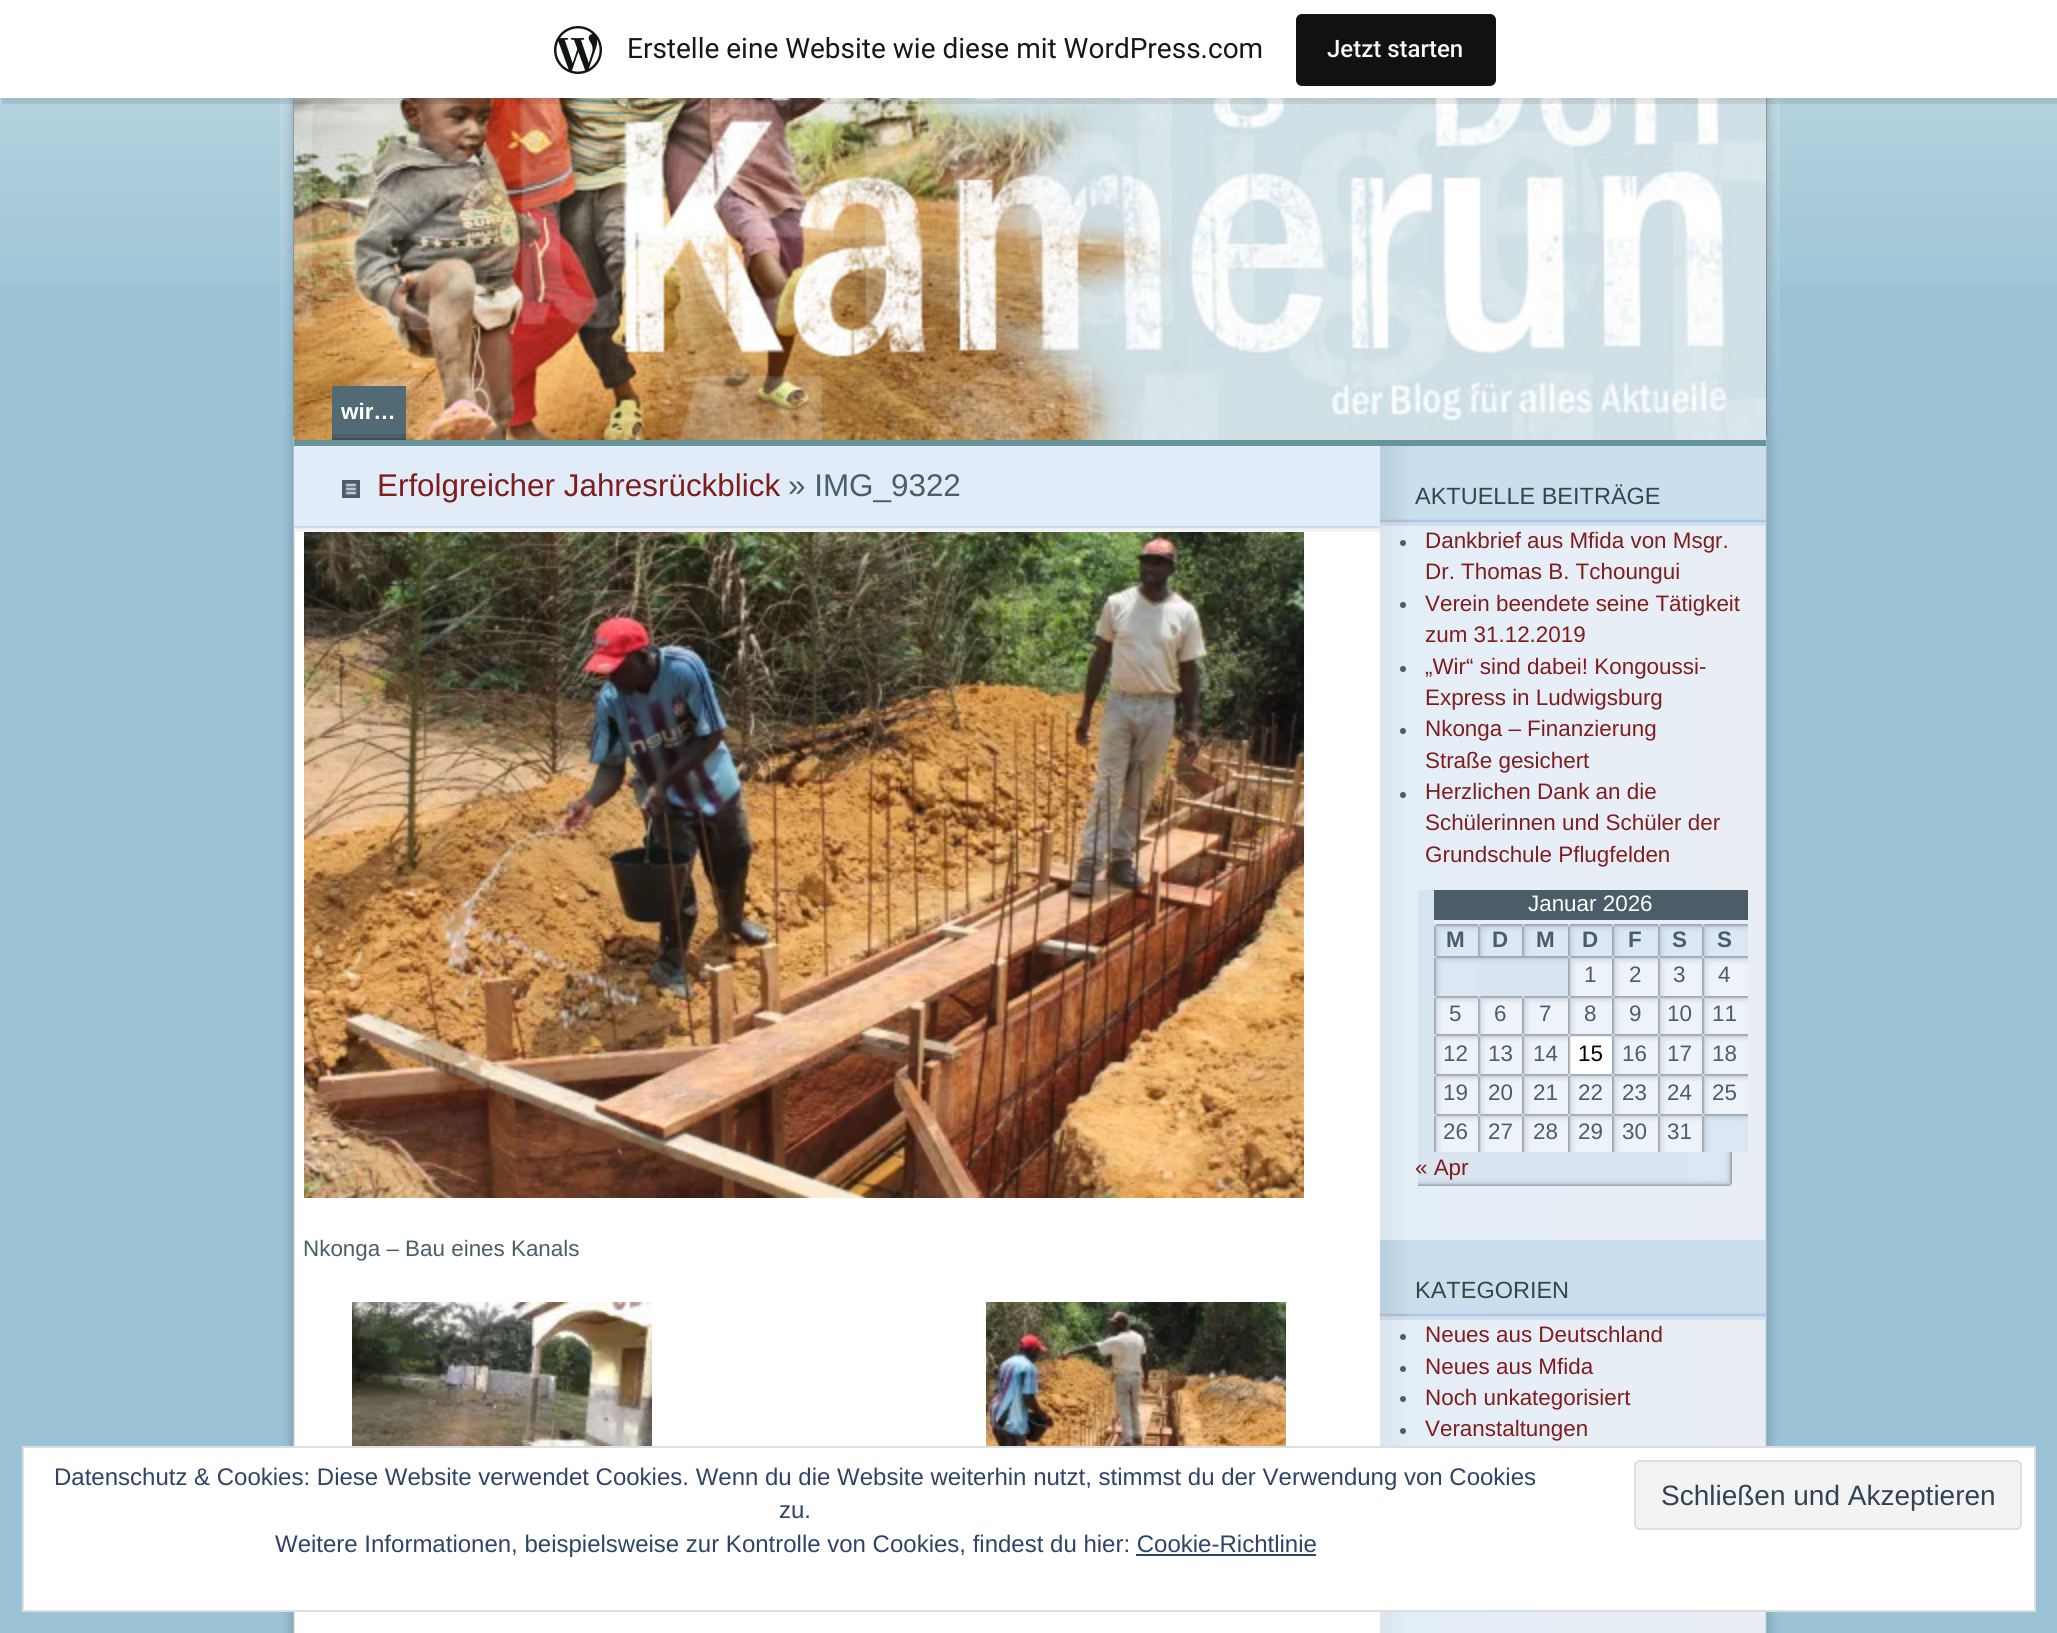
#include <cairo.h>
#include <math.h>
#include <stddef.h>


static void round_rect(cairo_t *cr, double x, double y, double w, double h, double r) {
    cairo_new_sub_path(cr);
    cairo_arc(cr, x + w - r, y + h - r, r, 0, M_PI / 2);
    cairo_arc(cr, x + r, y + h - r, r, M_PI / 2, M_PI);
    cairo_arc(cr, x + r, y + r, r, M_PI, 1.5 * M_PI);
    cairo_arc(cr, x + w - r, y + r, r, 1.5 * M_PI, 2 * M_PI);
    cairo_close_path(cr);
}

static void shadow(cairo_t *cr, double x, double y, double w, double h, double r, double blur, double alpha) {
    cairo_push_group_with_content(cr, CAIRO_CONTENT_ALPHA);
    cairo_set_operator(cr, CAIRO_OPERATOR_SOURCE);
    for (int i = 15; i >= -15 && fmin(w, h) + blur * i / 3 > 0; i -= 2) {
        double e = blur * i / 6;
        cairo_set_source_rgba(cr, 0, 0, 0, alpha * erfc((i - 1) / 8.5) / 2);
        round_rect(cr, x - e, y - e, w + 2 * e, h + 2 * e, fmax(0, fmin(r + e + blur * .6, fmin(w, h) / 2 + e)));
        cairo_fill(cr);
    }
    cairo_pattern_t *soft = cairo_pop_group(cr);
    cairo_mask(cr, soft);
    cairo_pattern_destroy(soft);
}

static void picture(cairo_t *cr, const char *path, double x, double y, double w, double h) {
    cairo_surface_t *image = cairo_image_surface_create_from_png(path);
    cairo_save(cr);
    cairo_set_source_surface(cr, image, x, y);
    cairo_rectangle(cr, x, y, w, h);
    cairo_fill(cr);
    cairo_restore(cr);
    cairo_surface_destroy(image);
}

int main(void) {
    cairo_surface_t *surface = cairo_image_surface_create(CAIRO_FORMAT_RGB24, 2057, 1633);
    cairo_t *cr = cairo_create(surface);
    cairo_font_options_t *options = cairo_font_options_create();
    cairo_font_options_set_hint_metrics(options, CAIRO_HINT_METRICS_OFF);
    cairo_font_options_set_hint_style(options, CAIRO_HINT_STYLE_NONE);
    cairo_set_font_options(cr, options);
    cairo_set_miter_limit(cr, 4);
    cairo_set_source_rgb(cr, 0.608, 0.765, 0.835);
    cairo_paint(cr);
    picture(cr, "img1.png", 0, 98, 2057, 187);
    picture(cr, "img4.png", 280, 98, 1500, 338);
    picture(cr, "img3.png", 280, 436, 1500, 1197);
    picture(cr, "img5.png", 294, 98, 1472, 342);
    cairo_set_source_rgb(cr, 0, 0, 0);
    shadow(cr, 0, 2, 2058, 98, 0, 2, 0.05);
    cairo_set_source_rgba(cr, 0, 0, 0, 0.08);
    cairo_new_path(cr);
    cairo_move_to(cr, 2, 98);
    cairo_line_to(cr, 2, 104);
    cairo_line_to(cr, 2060, 104);
    cairo_line_to(cr, 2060, 6);
    cairo_line_to(cr, 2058, 6);
    cairo_line_to(cr, 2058, 98);
    cairo_close_path(cr);
    cairo_fill(cr);
    cairo_set_source_rgb(cr, 1, 1, 1);
    cairo_rectangle(cr, 0, 0, 2057, 98);
    cairo_fill(cr);
    picture(cr, "img2.png", 554, 26, 48, 48);
    cairo_select_font_face(cr, "Roboto", CAIRO_FONT_SLANT_NORMAL, CAIRO_FONT_WEIGHT_NORMAL);
    cairo_set_font_size(cr, 28);
    cairo_set_source_rgb(cr, 0.09, 0.09, 0.09);
    cairo_move_to(cr, 627, 58);
    cairo_show_text(cr, "Erstelle eine Website wie diese mit WordPress.com");
    cairo_set_source_rgb(cr, 0.067, 0.067, 0.067);
    round_rect(cr, 1296, 14, 200, 72, 6);
    cairo_fill(cr);
    cairo_select_font_face(cr, "Roboto Medium", CAIRO_FONT_SLANT_NORMAL, CAIRO_FONT_WEIGHT_NORMAL);
    cairo_set_font_size(cr, 24);
    cairo_set_source_rgb(cr, 0.965, 0.969, 0.969);
    cairo_move_to(cr, 1327, 57);
    cairo_show_text(cr, "Jetzt starten");
    cairo_set_source_rgb(cr, 0.404, 0.576, 0.608);
    cairo_rectangle(cr, 294, 440, 1472, 6);
    cairo_fill(cr);
    cairo_set_source_rgb(cr, 0.255, 0.306, 0.325);
    cairo_rectangle(cr, 332, 438, 74, 2);
    cairo_fill(cr);
    cairo_set_source_rgb(cr, 0.322, 0.416, 0.455);
    cairo_rectangle(cr, 332, 386, 74, 48);
    cairo_fill(cr);
    cairo_set_source_rgb(cr, 0.29, 0.369, 0.396);
    cairo_rectangle(cr, 332, 434, 74, 4);
    cairo_fill(cr);
    cairo_select_font_face(cr, "Liberation Sans", CAIRO_FONT_SLANT_NORMAL, CAIRO_FONT_WEIGHT_BOLD);
    cairo_set_font_size(cr, 22.4);
    cairo_set_source_rgb(cr, 1, 1, 1);
    cairo_move_to(cr, 341, 419);
    cairo_show_text(cr, "wir…");
    cairo_set_source_rgb(cr, 0.886, 0.922, 0.973);
    cairo_rectangle(cr, 294, 446, 1086, 80);
    cairo_fill(cr);
    picture(cr, "img6.png", 294, 526, 1086, 6);
    picture(cr, "img7.png", 342, 480, 18, 18);
    cairo_select_font_face(cr, "Liberation Sans", CAIRO_FONT_SLANT_NORMAL, CAIRO_FONT_WEIGHT_NORMAL);
    cairo_set_font_size(cr, 31.4);
    cairo_set_source_rgb(cr, 0.498, 0.114, 0.114);
    cairo_move_to(cr, 377, 496);
    cairo_show_text(cr, "Erfolgreicher Jahresrückblick");
    cairo_set_source_rgb(cr, 0.294, 0.365, 0.404);
    cairo_move_to(cr, 788, 496);
    cairo_show_text(cr, "» IMG_9322");
    picture(cr, "img8.png", 304, 532, 1000, 666);
    cairo_set_font_size(cr, 22.4);
    cairo_move_to(cr, 303, 1256);
    cairo_show_text(cr, "Nkonga – Bau eines Kanals");
    picture(cr, "img9.png", 352, 1302, 300, 144);
    picture(cr, "img10.png", 986, 1302, 300, 144);
    picture(cr, "img11.png", 1380, 446, 386, 80);
    cairo_set_font_size(cr, 23.5);
    cairo_set_source_rgb(cr, 0.196, 0.278, 0.294);
    cairo_move_to(cr, 1415, 504);
    cairo_show_text(cr, "AKTUELLE BEITRÄGE");
    cairo_set_source_rgb(cr, 0.294, 0.365, 0.404);
    cairo_new_path(cr);
    cairo_arc(cr, 1403, 543, 3, 0, 2 * M_PI);
    cairo_fill(cr);
    cairo_set_font_size(cr, 22.4);
    cairo_set_source_rgb(cr, 0.498, 0.114, 0.114);
    cairo_move_to(cr, 1425, 548);
    cairo_show_text(cr, "Dankbrief aus Mfida von Msgr.");
    cairo_move_to(cr, 1425, 579);
    cairo_show_text(cr, "Dr. Thomas B. Tchoungui");
    cairo_set_source_rgb(cr, 0.294, 0.365, 0.404);
    cairo_new_path(cr);
    cairo_arc(cr, 1403, 605, 3, 0, 2 * M_PI);
    cairo_fill(cr);
    cairo_set_source_rgb(cr, 0.498, 0.114, 0.114);
    cairo_move_to(cr, 1425, 611);
    cairo_show_text(cr, "Verein beendete seine Tätigkeit");
    cairo_move_to(cr, 1425, 642);
    cairo_show_text(cr, "zum 31.12.2019");
    cairo_set_source_rgb(cr, 0.294, 0.365, 0.404);
    cairo_new_path(cr);
    cairo_arc(cr, 1403, 669, 3, 0, 2 * M_PI);
    cairo_fill(cr);
    cairo_set_source_rgb(cr, 0.498, 0.114, 0.114);
    cairo_move_to(cr, 1425, 674);
    cairo_show_text(cr, "„Wir“ sind dabei! Kongoussi-");
    cairo_move_to(cr, 1425, 705);
    cairo_show_text(cr, "Express in Ludwigsburg");
    cairo_set_source_rgb(cr, 0.294, 0.365, 0.404);
    cairo_new_path(cr);
    cairo_arc(cr, 1403, 731, 3, 0, 2 * M_PI);
    cairo_fill(cr);
    cairo_set_source_rgb(cr, 0.498, 0.114, 0.114);
    cairo_move_to(cr, 1425, 736);
    cairo_show_text(cr, "Nkonga – Finanzierung");
    cairo_move_to(cr, 1425, 768);
    cairo_show_text(cr, "Straße gesichert");
    cairo_set_source_rgb(cr, 0.294, 0.365, 0.404);
    cairo_new_path(cr);
    cairo_arc(cr, 1403, 795, 3, 0, 2 * M_PI);
    cairo_fill(cr);
    cairo_set_source_rgb(cr, 0.498, 0.114, 0.114);
    cairo_move_to(cr, 1425, 799);
    cairo_show_text(cr, "Herzlichen Dank an die");
    cairo_move_to(cr, 1425, 830);
    cairo_show_text(cr, "Schülerinnen und Schüler der");
    cairo_move_to(cr, 1425, 862);
    cairo_show_text(cr, "Grundschule Pflugfelden");
    picture(cr, "img12.png", 1418, 890, 314, 296);
    cairo_set_source_rgb(cr, 0.294, 0.365, 0.404);
    cairo_rectangle(cr, 1434, 890, 314, 30);
    cairo_fill(cr);
    cairo_set_source_rgb(cr, 0.902, 0.933, 0.969);
    cairo_rectangle(cr, 1434, 920, 314, 4);
    cairo_fill(cr);
    cairo_set_source_rgb(cr, 1, 1, 1);
    cairo_move_to(cr, 1528, 911);
    cairo_show_text(cr, "Januar 2026");
    picture(cr, "img13.png", 1434, 924, 44, 32);
    cairo_select_font_face(cr, "Liberation Sans", CAIRO_FONT_SLANT_NORMAL, CAIRO_FONT_WEIGHT_BOLD);
    cairo_set_source_rgb(cr, 0.294, 0.365, 0.404);
    cairo_move_to(cr, 1446, 947);
    cairo_show_text(cr, "M");
    picture(cr, "img13.png", 1478, 924, 44, 32);
    cairo_move_to(cr, 1492, 947);
    cairo_show_text(cr, "D");
    picture(cr, "img14.png", 1522, 924, 46, 32);
    cairo_move_to(cr, 1536, 947);
    cairo_show_text(cr, "M");
    picture(cr, "img13.png", 1568, 924, 44, 32);
    cairo_move_to(cr, 1582, 947);
    cairo_show_text(cr, "D");
    picture(cr, "img14.png", 1612, 924, 46, 32);
    cairo_move_to(cr, 1628, 947);
    cairo_show_text(cr, "F");
    picture(cr, "img13.png", 1658, 924, 44, 32);
    cairo_move_to(cr, 1672, 947);
    cairo_show_text(cr, "S");
    picture(cr, "img15.png", 1702, 924, 46, 32);
    cairo_move_to(cr, 1717, 947);
    cairo_show_text(cr, "S");
    picture(cr, "img16.png", 1434, 956, 134, 40);
    picture(cr, "img17.png", 1568, 956, 44, 40);
    cairo_select_font_face(cr, "Liberation Sans", CAIRO_FONT_SLANT_NORMAL, CAIRO_FONT_WEIGHT_NORMAL);
    cairo_move_to(cr, 1584, 982);
    cairo_show_text(cr, "1");
    picture(cr, "img18.png", 1612, 956, 46, 40);
    cairo_move_to(cr, 1629, 982);
    cairo_show_text(cr, "2");
    picture(cr, "img17.png", 1658, 956, 44, 40);
    cairo_move_to(cr, 1673, 982);
    cairo_show_text(cr, "3");
    picture(cr, "img19.png", 1702, 956, 46, 40);
    cairo_move_to(cr, 1718, 982);
    cairo_show_text(cr, "4");
    picture(cr, "img20.png", 1434, 996, 44, 38);
    cairo_move_to(cr, 1449, 1021);
    cairo_show_text(cr, "5");
    picture(cr, "img20.png", 1478, 996, 44, 38);
    cairo_move_to(cr, 1494, 1021);
    cairo_show_text(cr, "6");
    picture(cr, "img21.png", 1522, 996, 46, 38);
    cairo_move_to(cr, 1539, 1021);
    cairo_show_text(cr, "7");
    picture(cr, "img20.png", 1568, 996, 44, 38);
    cairo_move_to(cr, 1584, 1021);
    cairo_show_text(cr, "8");
    picture(cr, "img21.png", 1612, 996, 46, 38);
    cairo_move_to(cr, 1629, 1021);
    cairo_show_text(cr, "9");
    picture(cr, "img20.png", 1658, 996, 44, 38);
    cairo_move_to(cr, 1667, 1021);
    cairo_show_text(cr, "10");
    picture(cr, "img22.png", 1702, 996, 46, 38);
    cairo_move_to(cr, 1712, 1021);
    cairo_show_text(cr, "11");
    picture(cr, "img17.png", 1434, 1034, 44, 40);
    cairo_move_to(cr, 1443, 1061);
    cairo_show_text(cr, "12");
    picture(cr, "img17.png", 1478, 1034, 44, 40);
    cairo_move_to(cr, 1488, 1061);
    cairo_show_text(cr, "13");
    picture(cr, "img18.png", 1522, 1034, 46, 40);
    cairo_move_to(cr, 1533, 1061);
    cairo_show_text(cr, "14");
    picture(cr, "img23.png", 1568, 1034, 44, 40);
    cairo_set_source_rgb(cr, 0, 0, 0);
    cairo_move_to(cr, 1578, 1061);
    cairo_show_text(cr, "15");
    picture(cr, "img18.png", 1612, 1034, 46, 40);
    cairo_set_source_rgb(cr, 0.294, 0.365, 0.404);
    cairo_move_to(cr, 1622, 1061);
    cairo_show_text(cr, "16");
    picture(cr, "img17.png", 1658, 1034, 44, 40);
    cairo_move_to(cr, 1667, 1061);
    cairo_show_text(cr, "17");
    picture(cr, "img19.png", 1702, 1034, 46, 40);
    cairo_move_to(cr, 1712, 1061);
    cairo_show_text(cr, "18");
    picture(cr, "img17.png", 1434, 1074, 44, 40);
    cairo_move_to(cr, 1443, 1100);
    cairo_show_text(cr, "19");
    picture(cr, "img17.png", 1478, 1074, 44, 40);
    cairo_move_to(cr, 1488, 1100);
    cairo_show_text(cr, "20");
    picture(cr, "img18.png", 1522, 1074, 46, 40);
    cairo_move_to(cr, 1533, 1100);
    cairo_show_text(cr, "21");
    picture(cr, "img17.png", 1568, 1074, 44, 40);
    cairo_move_to(cr, 1578, 1100);
    cairo_show_text(cr, "22");
    picture(cr, "img18.png", 1612, 1074, 46, 40);
    cairo_move_to(cr, 1622, 1100);
    cairo_show_text(cr, "23");
    picture(cr, "img17.png", 1658, 1074, 44, 40);
    cairo_move_to(cr, 1667, 1100);
    cairo_show_text(cr, "24");
    picture(cr, "img19.png", 1702, 1074, 46, 40);
    cairo_move_to(cr, 1712, 1100);
    cairo_show_text(cr, "25");
    picture(cr, "img20.png", 1434, 1114, 44, 38);
    cairo_move_to(cr, 1443, 1139);
    cairo_show_text(cr, "26");
    picture(cr, "img20.png", 1478, 1114, 44, 38);
    cairo_move_to(cr, 1488, 1139);
    cairo_show_text(cr, "27");
    picture(cr, "img21.png", 1522, 1114, 46, 38);
    cairo_move_to(cr, 1533, 1139);
    cairo_show_text(cr, "28");
    picture(cr, "img20.png", 1568, 1114, 44, 38);
    cairo_move_to(cr, 1578, 1139);
    cairo_show_text(cr, "29");
    picture(cr, "img21.png", 1612, 1114, 46, 38);
    cairo_move_to(cr, 1622, 1139);
    cairo_show_text(cr, "30");
    picture(cr, "img20.png", 1658, 1114, 44, 38);
    cairo_move_to(cr, 1667, 1139);
    cairo_show_text(cr, "31");
    picture(cr, "img24.png", 1702, 1114, 46, 38);
    cairo_set_source_rgb(cr, 0.498, 0.114, 0.114);
    cairo_move_to(cr, 1415, 1175);
    cairo_show_text(cr, "« Apr");
    picture(cr, "img11.png", 1380, 1240, 386, 80);
    cairo_set_font_size(cr, 23.5);
    cairo_set_source_rgb(cr, 0.196, 0.278, 0.294);
    cairo_move_to(cr, 1415, 1298);
    cairo_show_text(cr, "KATEGORIEN");
    cairo_set_source_rgb(cr, 0.294, 0.365, 0.404);
    cairo_new_path(cr);
    cairo_arc(cr, 1403, 1337, 3, 0, 2 * M_PI);
    cairo_fill(cr);
    cairo_set_font_size(cr, 22.4);
    cairo_set_source_rgb(cr, 0.498, 0.114, 0.114);
    cairo_move_to(cr, 1425, 1342);
    cairo_show_text(cr, "Neues aus Deutschland");
    cairo_set_source_rgb(cr, 0.294, 0.365, 0.404);
    cairo_new_path(cr);
    cairo_arc(cr, 1403, 1369, 3, 0, 2 * M_PI);
    cairo_fill(cr);
    cairo_set_source_rgb(cr, 0.498, 0.114, 0.114);
    cairo_move_to(cr, 1425, 1374);
    cairo_show_text(cr, "Neues aus Mfida");
    cairo_set_source_rgb(cr, 0.294, 0.365, 0.404);
    cairo_new_path(cr);
    cairo_arc(cr, 1403, 1399, 3, 0, 2 * M_PI);
    cairo_fill(cr);
    cairo_set_source_rgb(cr, 0.498, 0.114, 0.114);
    cairo_move_to(cr, 1425, 1405);
    cairo_show_text(cr, "Noch unkategorisiert");
    cairo_set_source_rgb(cr, 0.294, 0.365, 0.404);
    cairo_new_path(cr);
    cairo_arc(cr, 1403, 1431, 3, 0, 2 * M_PI);
    cairo_fill(cr);
    cairo_set_source_rgb(cr, 0.498, 0.114, 0.114);
    cairo_move_to(cr, 1425, 1436);
    cairo_show_text(cr, "Veranstaltungen");
    cairo_set_source_rgb(cr, 1, 1, 1);
    cairo_rectangle(cr, 23, 1447, 2012, 164);
    cairo_fill_preserve(cr);
    cairo_set_source_rgb(cr, 0.871, 0.871, 0.871);
    cairo_stroke(cr);
    cairo_set_font_size(cr, 24);
    cairo_set_source_rgb(cr, 0.18, 0.267, 0.404);
    cairo_move_to(cr, 54, 1485);
    cairo_show_text(cr, "Datenschutz & Cookies: Diese Website verwendet Cookies. Wenn du die Website weiterhin nutzt, stimmst du der Verwendung von Cookies");
    cairo_move_to(cr, 779, 1518);
    cairo_show_text(cr, "zu.");
    cairo_set_source_rgb(cr, 0.953, 0.953, 0.953);
    round_rect(cr, 1635, 1461, 386, 68, 5);
    cairo_fill_preserve(cr);
    cairo_set_source_rgb(cr, 0.871, 0.871, 0.871);
    cairo_stroke(cr);
    cairo_set_font_size(cr, 28);
    cairo_set_source_rgb(cr, 0.18, 0.267, 0.325);
    cairo_move_to(cr, 1661, 1505);
    cairo_show_text(cr, "Schließen und Akzeptieren");
    cairo_set_font_size(cr, 24);
    cairo_set_source_rgb(cr, 0.18, 0.267, 0.404);
    cairo_move_to(cr, 275, 1552);
    cairo_show_text(cr, "Weitere Informationen, beispielsweise zur Kontrolle von Cookies, findest du hier: Cookie-Richtlinie");
    cairo_rectangle(cr, 1136, 1554, 180, 2);
    cairo_fill(cr);
    cairo_surface_write_to_png(surface, "page.png");
    cairo_font_options_destroy(options);
    cairo_destroy(cr);
    cairo_surface_destroy(surface);
    return 0;
}
